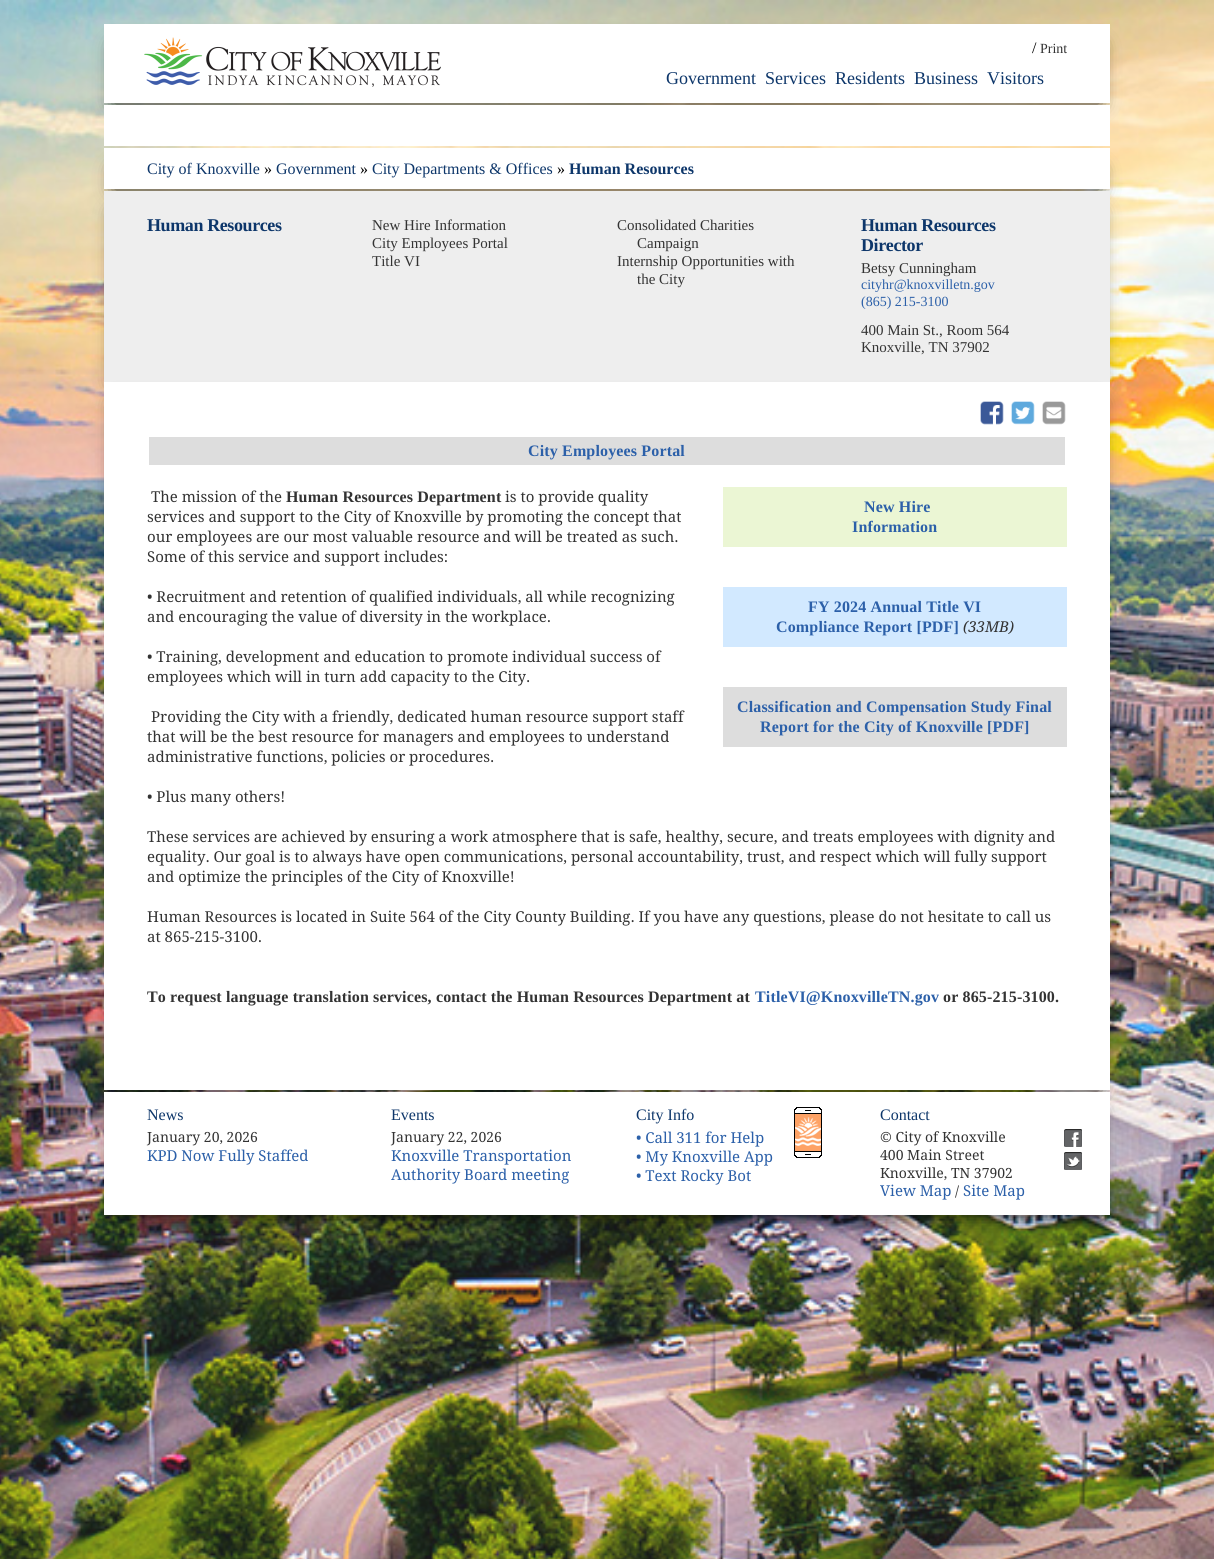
#include <cairo.h>
#include <math.h>
#include <stddef.h>


static void spaced_text(cairo_t *cr, double x, double y, const char *s, double letter, double word) {
    cairo_move_to(cr, x, y);
    while (*s) {
        char ch[5] = {0};
        int n = 0;
        do ch[n++] = *s++; while ((*s & 0xC0) == 0x80);
        cairo_show_text(cr, ch);
        cairo_rel_move_to(cr, letter + word * (*ch == ' '), 0);
    }
}

static void round_rect(cairo_t *cr, double x, double y, double w, double h, double r) {
    cairo_new_sub_path(cr);
    cairo_arc(cr, x + w - r, y + h - r, r, 0, M_PI / 2);
    cairo_arc(cr, x + r, y + h - r, r, M_PI / 2, M_PI);
    cairo_arc(cr, x + r, y + r, r, M_PI, 1.5 * M_PI);
    cairo_arc(cr, x + w - r, y + r, r, 1.5 * M_PI, 2 * M_PI);
    cairo_close_path(cr);
}

static void shadow(cairo_t *cr, double x, double y, double w, double h, double r, double blur, double alpha) {
    cairo_push_group_with_content(cr, CAIRO_CONTENT_ALPHA);
    cairo_set_operator(cr, CAIRO_OPERATOR_SOURCE);
    for (int i = 15; i >= -15 && fmin(w, h) + blur * i / 3 > 0; i -= 2) {
        double e = blur * i / 6;
        cairo_set_source_rgba(cr, 0, 0, 0, alpha * erfc((i - 1) / 8.5) / 2);
        round_rect(cr, x - e, y - e, w + 2 * e, h + 2 * e, fmax(0, fmin(r + e + blur * .6, fmin(w, h) / 2 + e)));
        cairo_fill(cr);
    }
    cairo_pattern_t *soft = cairo_pop_group(cr);
    cairo_mask(cr, soft);
    cairo_pattern_destroy(soft);
}

static void picture(cairo_t *cr, const char *path, double x, double y, double w, double h) {
    cairo_surface_t *image = cairo_image_surface_create_from_png(path);
    cairo_save(cr);
    cairo_set_source_surface(cr, image, x, y);
    cairo_rectangle(cr, x, y, w, h);
    cairo_fill(cr);
    cairo_restore(cr);
    cairo_surface_destroy(image);
}

int main(void) {
    cairo_surface_t *surface = cairo_image_surface_create(CAIRO_FORMAT_RGB24, 1214, 1559);
    cairo_t *cr = cairo_create(surface);
    cairo_font_options_t *options = cairo_font_options_create();
    cairo_font_options_set_hint_metrics(options, CAIRO_HINT_METRICS_OFF);
    cairo_font_options_set_hint_style(options, CAIRO_HINT_STYLE_NONE);
    cairo_set_font_options(cr, options);
    cairo_set_miter_limit(cr, 4);
    cairo_set_source_rgb(cr, 1, 1, 1);
    cairo_paint(cr);
    picture(cr, "img2.png", 0, 0, 1214, 1559);
    cairo_set_source_rgb(cr, 0, 0, 0);
    shadow(cr, 114, 45, 986, 59, 0, 9, 0.8);
    cairo_set_source_rgb(cr, 1, 1, 1);
    cairo_rectangle(cr, 104, 24, 1006, 79);
    cairo_fill(cr);
    picture(cr, "img1.png", 144, 37, 297, 50);
    cairo_select_font_face(cr, "Tinos", CAIRO_FONT_SLANT_NORMAL, CAIRO_FONT_WEIGHT_NORMAL);
    cairo_set_font_size(cr, 16);
    cairo_set_source_rgb(cr, 0, 0, 0);
    cairo_move_to(cr, 1032, 53);
    cairo_show_text(cr, "/");
    cairo_set_font_size(cr, 14);
    cairo_set_source_rgb(cr, 0.2, 0.2, 0.2);
    cairo_move_to(cr, 1040, 53);
    cairo_show_text(cr, "Print");
    cairo_set_font_size(cr, 18);
    cairo_set_source_rgb(cr, 0.051, 0.212, 0.416);
    cairo_move_to(cr, 666, 84);
    cairo_show_text(cr, "Government");
    cairo_move_to(cr, 765, 84);
    cairo_show_text(cr, "Services");
    cairo_move_to(cr, 835, 84);
    cairo_show_text(cr, "Residents");
    cairo_move_to(cr, 914, 84);
    cairo_show_text(cr, "Business");
    cairo_move_to(cr, 987, 84);
    cairo_show_text(cr, "Visitors");
    cairo_set_source_rgb(cr, 0, 0, 0);
    shadow(cr, 114, 169, 986, 21, 0, 9, 0.8);
    cairo_set_source_rgb(cr, 1, 1, 1);
    cairo_rectangle(cr, 104, 105, 1006, 41);
    cairo_fill(cr);
    cairo_rectangle(cr, 104, 148, 1006, 41);
    cairo_fill(cr);
    cairo_set_font_size(cr, 16);
    cairo_set_source_rgb(cr, 0.051, 0.212, 0.416);
    cairo_move_to(cr, 147, 174);
    cairo_show_text(cr, "City of Knoxville");
    cairo_set_source_rgb(cr, 0, 0, 0);
    cairo_move_to(cr, 264, 174);
    cairo_show_text(cr, "»");
    cairo_set_source_rgb(cr, 0.051, 0.212, 0.416);
    cairo_move_to(cr, 276, 174);
    cairo_show_text(cr, "Government");
    cairo_set_source_rgb(cr, 0, 0, 0);
    cairo_move_to(cr, 360, 174);
    cairo_show_text(cr, "»");
    cairo_set_source_rgb(cr, 0.051, 0.212, 0.416);
    cairo_move_to(cr, 372, 174);
    cairo_show_text(cr, "City Departments & Offices");
    cairo_set_source_rgb(cr, 0, 0, 0);
    cairo_move_to(cr, 557, 174);
    cairo_show_text(cr, "»");
    cairo_select_font_face(cr, "Tinos", CAIRO_FONT_SLANT_NORMAL, CAIRO_FONT_WEIGHT_BOLD);
    cairo_set_source_rgb(cr, 0.051, 0.212, 0.416);
    cairo_move_to(cr, 569, 174);
    cairo_show_text(cr, "Human Resources");
    cairo_set_source_rgb(cr, 0, 0, 0);
    shadow(cr, 114, 212, 986, 171, 0, 9, 0.8);
    cairo_set_source_rgb(cr, 0.933, 0.933, 0.933);
    cairo_rectangle(cr, 104, 191, 1006, 191);
    cairo_fill(cr);
    cairo_set_font_size(cr, 18);
    cairo_set_source_rgb(cr, 0.051, 0.212, 0.416);
    spaced_text(cr, 147, 231, "Human Resources", -0.4, 0);
    cairo_select_font_face(cr, "Tinos", CAIRO_FONT_SLANT_NORMAL, CAIRO_FONT_WEIGHT_NORMAL);
    cairo_set_font_size(cr, 15);
    cairo_set_source_rgb(cr, 0.2, 0.2, 0.2);
    cairo_move_to(cr, 372, 230);
    cairo_show_text(cr, "New Hire Information");
    cairo_move_to(cr, 372, 248);
    cairo_show_text(cr, "City Employees Portal");
    cairo_move_to(cr, 372, 266);
    cairo_show_text(cr, "Title VI");
    cairo_move_to(cr, 617, 230);
    cairo_show_text(cr, "Consolidated Charities");
    cairo_move_to(cr, 637, 248);
    cairo_show_text(cr, "Campaign");
    cairo_move_to(cr, 617, 266);
    cairo_show_text(cr, "Internship Opportunities with");
    cairo_move_to(cr, 637, 284);
    cairo_show_text(cr, "the City");
    cairo_select_font_face(cr, "Tinos", CAIRO_FONT_SLANT_NORMAL, CAIRO_FONT_WEIGHT_BOLD);
    cairo_set_font_size(cr, 18);
    cairo_set_source_rgb(cr, 0.051, 0.212, 0.416);
    spaced_text(cr, 861, 231, "Human Resources", -0.4, 0);
    spaced_text(cr, 861, 251, "Director", -0.4, 0);
    cairo_select_font_face(cr, "Tinos", CAIRO_FONT_SLANT_NORMAL, CAIRO_FONT_WEIGHT_NORMAL);
    cairo_set_font_size(cr, 15);
    cairo_set_source_rgb(cr, 0.2, 0.2, 0.2);
    cairo_move_to(cr, 861, 273);
    cairo_show_text(cr, "Betsy Cunningham");
    cairo_set_font_size(cr, 14);
    cairo_set_source_rgb(cr, 0.173, 0.376, 0.663);
    cairo_move_to(cr, 861, 289);
    cairo_show_text(cr, "cityhr@knoxvilletn.gov");
    cairo_move_to(cr, 861, 306);
    cairo_show_text(cr, "(865) 215-3100");
    cairo_set_font_size(cr, 15);
    cairo_set_source_rgb(cr, 0.2, 0.2, 0.2);
    cairo_move_to(cr, 861, 335);
    cairo_show_text(cr, "400 Main St., Room 564");
    cairo_move_to(cr, 861, 352);
    cairo_show_text(cr, "Knoxville, TN 37902");
    cairo_set_source_rgb(cr, 0, 0, 0);
    shadow(cr, 114, 403, 986, 688, 0, 9, 0.8);
    cairo_set_source_rgb(cr, 1, 1, 1);
    cairo_rectangle(cr, 104, 382, 1006, 708);
    cairo_fill(cr);
    picture(cr, "img3.png", 980, 401, 24, 24);
    picture(cr, "img4.png", 1011, 401, 24, 24);
    picture(cr, "img5.png", 1042, 401, 24, 24);
    cairo_set_source_rgb(cr, 0.867, 0.867, 0.867);
    cairo_rectangle(cr, 149, 437, 916, 28);
    cairo_fill(cr);
    cairo_select_font_face(cr, "Tinos", CAIRO_FONT_SLANT_NORMAL, CAIRO_FONT_WEIGHT_BOLD);
    cairo_set_font_size(cr, 16);
    cairo_set_source_rgb(cr, 0.173, 0.376, 0.663);
    spaced_text(cr, 528, 456, "City Employees Portal", 0.15, 0);
    cairo_select_font_face(cr, "Droid Serif", CAIRO_FONT_SLANT_NORMAL, CAIRO_FONT_WEIGHT_NORMAL);
    cairo_set_font_size(cr, 15);
    cairo_set_source_rgb(cr, 0.2, 0.2, 0.2);
    cairo_move_to(cr, 151, 502);
    cairo_show_text(cr, "The mission of the");
    cairo_select_font_face(cr, "Tinos", CAIRO_FONT_SLANT_NORMAL, CAIRO_FONT_WEIGHT_BOLD);
    cairo_set_font_size(cr, 16);
    spaced_text(cr, 286, 502, "Human Resources Department", 0.15, 0);
    cairo_select_font_face(cr, "Droid Serif", CAIRO_FONT_SLANT_NORMAL, CAIRO_FONT_WEIGHT_NORMAL);
    cairo_set_font_size(cr, 15);
    cairo_move_to(cr, 505, 502);
    cairo_show_text(cr, "is to provide quality");
    cairo_move_to(cr, 147, 522);
    cairo_show_text(cr, "services and support to the City of Knoxville by promoting the concept that");
    cairo_set_source_rgb(cr, 0.918, 0.961, 0.831);
    cairo_rectangle(cr, 723, 487, 344, 60);
    cairo_fill(cr);
    cairo_select_font_face(cr, "Tinos", CAIRO_FONT_SLANT_NORMAL, CAIRO_FONT_WEIGHT_BOLD);
    cairo_set_font_size(cr, 16);
    cairo_set_source_rgb(cr, 0.173, 0.376, 0.663);
    spaced_text(cr, 864, 512, "New Hire", 0.15, 0);
    spaced_text(cr, 852, 532, "Information", 0.15, 0);
    cairo_set_source_rgb(cr, 0.824, 0.914, 1);
    cairo_rectangle(cr, 723, 587, 344, 60);
    cairo_fill(cr);
    cairo_set_source_rgb(cr, 0.173, 0.376, 0.663);
    spaced_text(cr, 808, 612, "FY 2024 Annual Title VI", 0.15, 0);
    spaced_text(cr, 776, 632, "Compliance Report [PDF]", 0.15, 0);
    cairo_select_font_face(cr, "Droid Serif", CAIRO_FONT_SLANT_ITALIC, CAIRO_FONT_WEIGHT_NORMAL);
    cairo_set_font_size(cr, 15);
    cairo_set_source_rgb(cr, 0.2, 0.2, 0.2);
    cairo_move_to(cr, 963, 632);
    cairo_show_text(cr, "(33MB)");
    cairo_set_source_rgb(cr, 0.867, 0.867, 0.867);
    cairo_rectangle(cr, 723, 687, 344, 60);
    cairo_fill(cr);
    cairo_select_font_face(cr, "Tinos", CAIRO_FONT_SLANT_NORMAL, CAIRO_FONT_WEIGHT_BOLD);
    cairo_set_font_size(cr, 16);
    cairo_set_source_rgb(cr, 0.173, 0.376, 0.663);
    spaced_text(cr, 737, 712, "Classification and Compensation Study Final", 0.15, 0);
    spaced_text(cr, 760, 732, "Report for the City of Knoxville [PDF]", 0.15, 0);
    cairo_select_font_face(cr, "Droid Serif", CAIRO_FONT_SLANT_NORMAL, CAIRO_FONT_WEIGHT_NORMAL);
    cairo_set_font_size(cr, 15);
    cairo_set_source_rgb(cr, 0.2, 0.2, 0.2);
    cairo_move_to(cr, 147, 542);
    cairo_show_text(cr, "our employees are our most valuable resource and will be treated as such.");
    cairo_move_to(cr, 147, 562);
    cairo_show_text(cr, "Some of this service and support includes:");
    cairo_move_to(cr, 147, 602);
    cairo_show_text(cr, "• Recruitment and retention of qualified individuals, all while recognizing");
    cairo_move_to(cr, 147, 622);
    cairo_show_text(cr, "and encouraging the value of diversity in the workplace.");
    cairo_move_to(cr, 147, 662);
    cairo_show_text(cr, "• Training, development and education to promote individual success of");
    cairo_move_to(cr, 147, 682);
    cairo_show_text(cr, "employees which will in turn add capacity to the City.");
    cairo_move_to(cr, 151, 722);
    cairo_show_text(cr, "Providing the City with a friendly, dedicated human resource support staff");
    cairo_move_to(cr, 147, 742);
    cairo_show_text(cr, "that will be the best resource for managers and employees to understand");
    cairo_move_to(cr, 147, 762);
    cairo_show_text(cr, "administrative functions, policies or procedures.");
    cairo_move_to(cr, 147, 802);
    cairo_show_text(cr, "• Plus many others!");
    cairo_move_to(cr, 147, 842);
    cairo_show_text(cr, "These services are achieved by ensuring a work atmosphere that is safe, healthy, secure, and treats employees with dignity and");
    cairo_move_to(cr, 147, 862);
    cairo_show_text(cr, "equality. Our goal is to always have open communications, personal accountability, trust, and respect which will fully support");
    cairo_move_to(cr, 147, 882);
    cairo_show_text(cr, "and optimize the principles of the City of Knoxville!");
    cairo_move_to(cr, 147, 922);
    cairo_show_text(cr, "Human Resources is located in Suite 564 of the City County Building. If you have any questions, please do not hesitate to call us");
    cairo_move_to(cr, 147, 942);
    cairo_show_text(cr, "at 865-215-3100.");
    cairo_select_font_face(cr, "Tinos", CAIRO_FONT_SLANT_NORMAL, CAIRO_FONT_WEIGHT_BOLD);
    cairo_set_font_size(cr, 16);
    spaced_text(cr, 147, 1002, "To request language translation services, contact the Human Resources Department at", 0.15, 0);
    cairo_set_source_rgb(cr, 0.173, 0.376, 0.663);
    spaced_text(cr, 755, 1002, "TitleVI@KnoxvilleTN.gov", 0.15, 0);
    cairo_set_source_rgb(cr, 0.2, 0.2, 0.2);
    spaced_text(cr, 943, 1002, "or 865-215-3100.", 0.15, 0);
    cairo_set_source_rgb(cr, 0, 0, 0);
    shadow(cr, 114, 1113, 986, 103, 0, 9, 0.8);
    cairo_set_source_rgb(cr, 1, 1, 1);
    cairo_rectangle(cr, 104, 1092, 1006, 123);
    cairo_fill(cr);
    cairo_select_font_face(cr, "Tinos", CAIRO_FONT_SLANT_NORMAL, CAIRO_FONT_WEIGHT_NORMAL);
    cairo_set_source_rgb(cr, 0.051, 0.212, 0.416);
    cairo_move_to(cr, 147, 1120);
    cairo_show_text(cr, "News");
    cairo_select_font_face(cr, "Droid Serif", CAIRO_FONT_SLANT_NORMAL, CAIRO_FONT_WEIGHT_NORMAL);
    cairo_set_font_size(cr, 14);
    cairo_set_source_rgb(cr, 0.2, 0.2, 0.2);
    cairo_move_to(cr, 147, 1142);
    cairo_show_text(cr, "January 20, 2026");
    cairo_set_font_size(cr, 15);
    cairo_set_source_rgb(cr, 0.173, 0.376, 0.663);
    cairo_move_to(cr, 147, 1161);
    cairo_show_text(cr, "KPD Now Fully Staffed");
    cairo_select_font_face(cr, "Tinos", CAIRO_FONT_SLANT_NORMAL, CAIRO_FONT_WEIGHT_NORMAL);
    cairo_set_font_size(cr, 16);
    cairo_set_source_rgb(cr, 0.051, 0.212, 0.416);
    cairo_move_to(cr, 391, 1120);
    cairo_show_text(cr, "Events");
    cairo_select_font_face(cr, "Droid Serif", CAIRO_FONT_SLANT_NORMAL, CAIRO_FONT_WEIGHT_NORMAL);
    cairo_set_font_size(cr, 14);
    cairo_set_source_rgb(cr, 0.2, 0.2, 0.2);
    cairo_move_to(cr, 391, 1142);
    cairo_show_text(cr, "January 22, 2026");
    cairo_set_font_size(cr, 15);
    cairo_set_source_rgb(cr, 0.173, 0.376, 0.663);
    cairo_move_to(cr, 391, 1161);
    cairo_show_text(cr, "Knoxville Transportation");
    cairo_move_to(cr, 391, 1180);
    cairo_show_text(cr, "Authority Board meeting");
    cairo_select_font_face(cr, "Tinos", CAIRO_FONT_SLANT_NORMAL, CAIRO_FONT_WEIGHT_NORMAL);
    cairo_set_font_size(cr, 16);
    cairo_set_source_rgb(cr, 0.051, 0.212, 0.416);
    cairo_move_to(cr, 636, 1120);
    cairo_show_text(cr, "City Info");
    picture(cr, "img6.png", 794, 1107, 28, 51);
    cairo_select_font_face(cr, "Droid Serif", CAIRO_FONT_SLANT_NORMAL, CAIRO_FONT_WEIGHT_NORMAL);
    cairo_set_font_size(cr, 15);
    cairo_set_source_rgb(cr, 0.173, 0.376, 0.663);
    cairo_move_to(cr, 636, 1143);
    cairo_show_text(cr, "• Call 311 for Help");
    cairo_move_to(cr, 636, 1162);
    cairo_show_text(cr, "• My Knoxville App");
    cairo_move_to(cr, 636, 1181);
    cairo_show_text(cr, "• Text Rocky Bot");
    cairo_select_font_face(cr, "Tinos", CAIRO_FONT_SLANT_NORMAL, CAIRO_FONT_WEIGHT_NORMAL);
    cairo_set_font_size(cr, 16);
    cairo_set_source_rgb(cr, 0.051, 0.212, 0.416);
    cairo_move_to(cr, 880, 1120);
    cairo_show_text(cr, "Contact");
    cairo_select_font_face(cr, "Droid Serif", CAIRO_FONT_SLANT_NORMAL, CAIRO_FONT_WEIGHT_NORMAL);
    cairo_set_font_size(cr, 14);
    cairo_set_source_rgb(cr, 0.2, 0.2, 0.2);
    cairo_move_to(cr, 880, 1142);
    cairo_show_text(cr, "© City of Knoxville");
    cairo_move_to(cr, 880, 1160);
    cairo_show_text(cr, "400 Main Street");
    cairo_move_to(cr, 880, 1178);
    cairo_show_text(cr, "Knoxville, TN 37902");
    cairo_set_font_size(cr, 15);
    cairo_set_source_rgb(cr, 0.173, 0.376, 0.663);
    cairo_move_to(cr, 880, 1196);
    cairo_show_text(cr, "View Map");
    cairo_set_font_size(cr, 14);
    cairo_set_source_rgb(cr, 0.2, 0.2, 0.2);
    cairo_move_to(cr, 955, 1196);
    cairo_show_text(cr, "/");
    cairo_set_font_size(cr, 15);
    cairo_set_source_rgb(cr, 0.173, 0.376, 0.663);
    cairo_move_to(cr, 963, 1196);
    cairo_show_text(cr, "Site Map");
    picture(cr, "img7.png", 1064, 1129, 18, 18);
    picture(cr, "img8.png", 1064, 1152, 18, 18);
    cairo_surface_write_to_png(surface, "page.png");
    cairo_font_options_destroy(options);
    cairo_destroy(cr);
    cairo_surface_destroy(surface);
    return 0;
}
